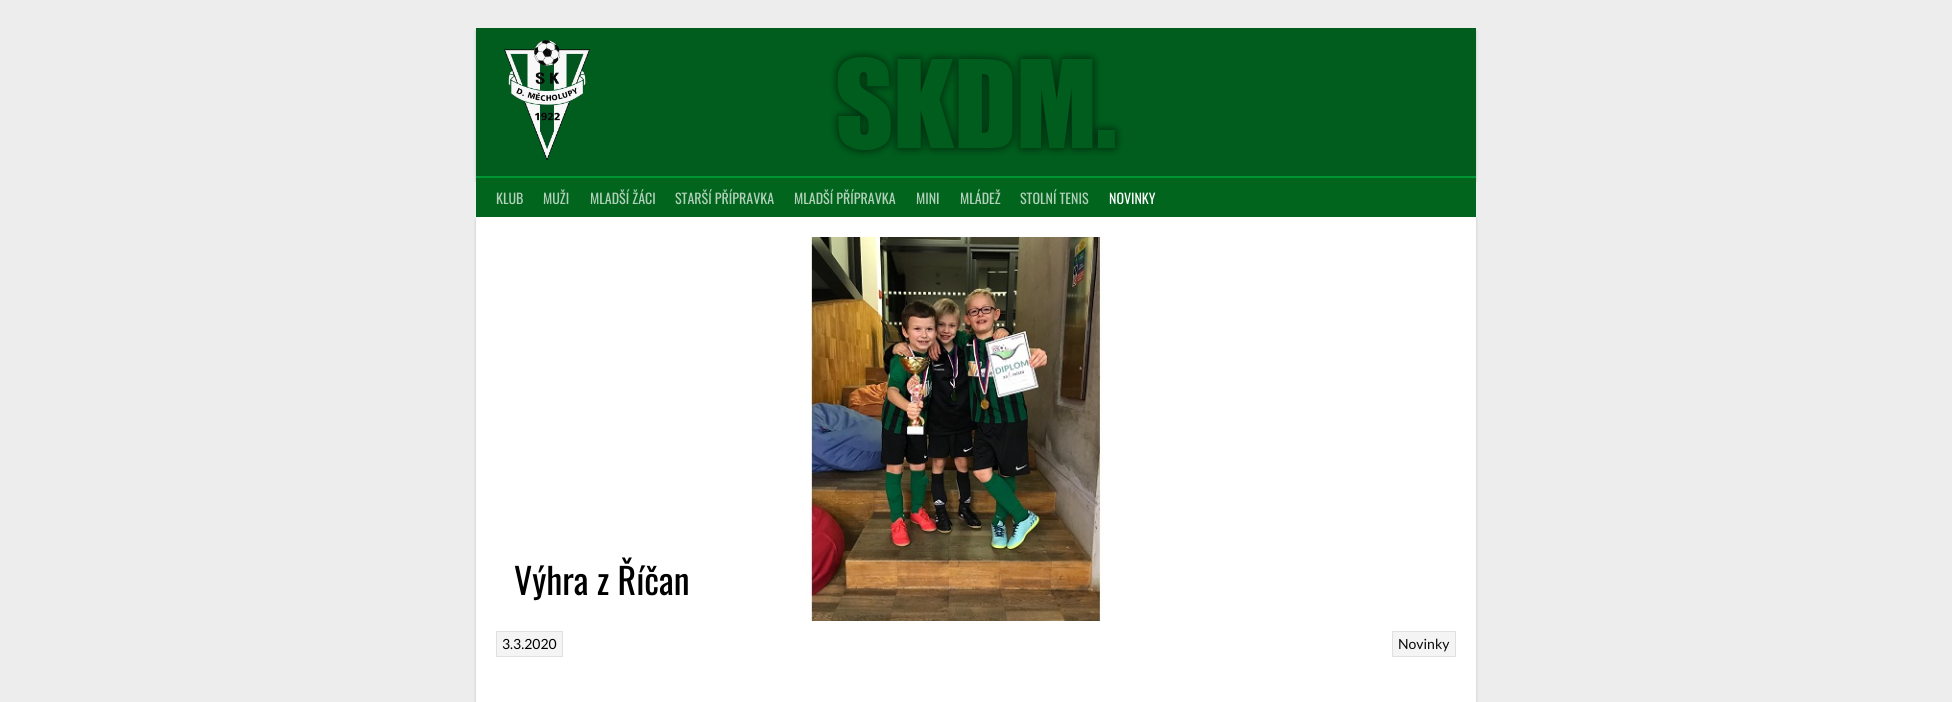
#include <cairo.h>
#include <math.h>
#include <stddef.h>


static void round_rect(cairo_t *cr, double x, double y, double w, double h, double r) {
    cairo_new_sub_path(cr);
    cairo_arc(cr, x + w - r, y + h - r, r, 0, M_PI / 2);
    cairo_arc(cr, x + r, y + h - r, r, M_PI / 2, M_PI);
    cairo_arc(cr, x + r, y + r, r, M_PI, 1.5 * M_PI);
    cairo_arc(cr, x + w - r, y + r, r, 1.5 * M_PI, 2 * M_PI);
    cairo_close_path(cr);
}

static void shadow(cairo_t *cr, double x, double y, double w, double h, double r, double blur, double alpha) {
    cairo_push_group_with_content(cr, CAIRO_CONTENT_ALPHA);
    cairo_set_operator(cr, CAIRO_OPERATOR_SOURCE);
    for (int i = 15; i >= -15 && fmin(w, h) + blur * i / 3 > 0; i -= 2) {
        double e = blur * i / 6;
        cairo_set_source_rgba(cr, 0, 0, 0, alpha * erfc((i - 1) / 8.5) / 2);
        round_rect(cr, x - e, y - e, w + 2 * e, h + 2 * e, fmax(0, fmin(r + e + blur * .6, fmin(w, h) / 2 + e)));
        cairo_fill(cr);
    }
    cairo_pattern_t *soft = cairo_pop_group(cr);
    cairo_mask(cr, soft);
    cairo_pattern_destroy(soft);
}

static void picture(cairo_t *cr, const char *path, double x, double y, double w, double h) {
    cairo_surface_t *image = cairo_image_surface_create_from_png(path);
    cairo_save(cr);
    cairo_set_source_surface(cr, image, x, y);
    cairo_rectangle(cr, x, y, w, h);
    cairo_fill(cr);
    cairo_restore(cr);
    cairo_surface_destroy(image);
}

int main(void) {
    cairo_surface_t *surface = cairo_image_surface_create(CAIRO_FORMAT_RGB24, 1952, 702);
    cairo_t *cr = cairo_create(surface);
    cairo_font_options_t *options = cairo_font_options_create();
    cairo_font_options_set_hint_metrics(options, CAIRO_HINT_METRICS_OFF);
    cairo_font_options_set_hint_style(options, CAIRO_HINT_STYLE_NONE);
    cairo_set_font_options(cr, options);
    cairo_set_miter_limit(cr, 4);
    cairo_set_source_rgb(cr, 0.929, 0.929, 0.929);
    cairo_paint(cr);
    picture(cr, "img1.png", 476, 28, 1000, 150);
    cairo_save(cr);
    cairo_set_fill_rule(cr, CAIRO_FILL_RULE_EVEN_ODD);
    cairo_new_path(cr);
    cairo_move_to(cr, 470, 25);
    cairo_line_to(cr, 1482, 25);
    cairo_line_to(cr, 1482, 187);
    cairo_line_to(cr, 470, 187);
    cairo_close_path(cr);
    cairo_move_to(cr, 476, 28);
    cairo_line_to(cr, 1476, 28);
    cairo_line_to(cr, 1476, 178);
    cairo_line_to(cr, 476, 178);
    cairo_close_path(cr);
    cairo_clip(cr);
    cairo_set_source_rgb(cr, 0, 0, 0);
    shadow(cr, 476, 31, 1000, 150, 0, 1.5, 0.2);
    cairo_restore(cr);
    picture(cr, "img2.png", 504, 40, 86, 120);
    cairo_set_source_rgb(cr, 0, 0, 0);
    shadow(cr, 476, 220, 1000, 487, 0, 1.5, 0.2);
    cairo_set_source_rgb(cr, 0.004, 0.396, 0.114);
    cairo_rectangle(cr, 476, 178, 1000, 39);
    cairo_fill(cr);
    cairo_select_font_face(cr, "Oswald", CAIRO_FONT_SLANT_NORMAL, CAIRO_FONT_WEIGHT_NORMAL);
    cairo_set_font_size(cr, 14);
    cairo_set_source_rgb(cr, 0.702, 0.82, 0.733);
    cairo_move_to(cr, 496, 204);
    cairo_show_text(cr, "KLUB");
    cairo_move_to(cr, 543, 204);
    cairo_show_text(cr, "MUŽI");
    cairo_move_to(cr, 590, 204);
    cairo_show_text(cr, "MLADŠÍ ŽÁCI");
    cairo_move_to(cr, 675, 204);
    cairo_show_text(cr, "STARŠÍ PŘÍPRAVKA");
    cairo_move_to(cr, 794, 204);
    cairo_show_text(cr, "MLADŠÍ PŘÍPRAVKA");
    cairo_move_to(cr, 916, 204);
    cairo_show_text(cr, "MINI");
    cairo_move_to(cr, 960, 204);
    cairo_show_text(cr, "MLÁDEŽ");
    cairo_move_to(cr, 1020, 204);
    cairo_show_text(cr, "STOLNÍ TENIS");
    cairo_set_source_rgb(cr, 1, 1, 1);
    cairo_move_to(cr, 1109, 204);
    cairo_show_text(cr, "NOVINKY");
    cairo_rectangle(cr, 476, 217, 1000, 485);
    cairo_fill(cr);
    cairo_set_source_rgb(cr, 0.878, 0.878, 0.878);
    cairo_rectangle(cr, 1476, 217, 1, 485);
    cairo_fill(cr);
    picture(cr, "img3.png", 806, 237, 297, 384);
    cairo_set_font_size(cr, 36);
    cairo_set_source_rgb(cr, 0, 0, 0);
    cairo_move_to(cr, 514, 595);
    cairo_show_text(cr, "Výhra z Říčan");
    cairo_set_source_rgb(cr, 0.957, 0.957, 0.957);
    cairo_rectangle(cr, 496.5, 631.5, 66, 25);
    cairo_fill_preserve(cr);
    cairo_set_source_rgb(cr, 0.878, 0.878, 0.878);
    cairo_set_line_width(cr, 1);
    cairo_stroke(cr);
    cairo_select_font_face(cr, "Lato", CAIRO_FONT_SLANT_NORMAL, CAIRO_FONT_WEIGHT_NORMAL);
    cairo_set_font_size(cr, 14);
    cairo_set_source_rgb(cr, 0, 0, 0);
    cairo_move_to(cr, 502, 649);
    cairo_show_text(cr, "3.3.2020");
    cairo_set_source_rgb(cr, 0.957, 0.957, 0.957);
    cairo_rectangle(cr, 1392.5, 631.5, 63, 25);
    cairo_fill_preserve(cr);
    cairo_set_source_rgb(cr, 0.878, 0.878, 0.878);
    cairo_stroke(cr);
    cairo_set_source_rgb(cr, 0.039, 0.039, 0.039);
    cairo_move_to(cr, 1398, 649);
    cairo_show_text(cr, "Novinky");
    cairo_surface_write_to_png(surface, "page.png");
    cairo_font_options_destroy(options);
    cairo_destroy(cr);
    cairo_surface_destroy(surface);
    return 0;
}
